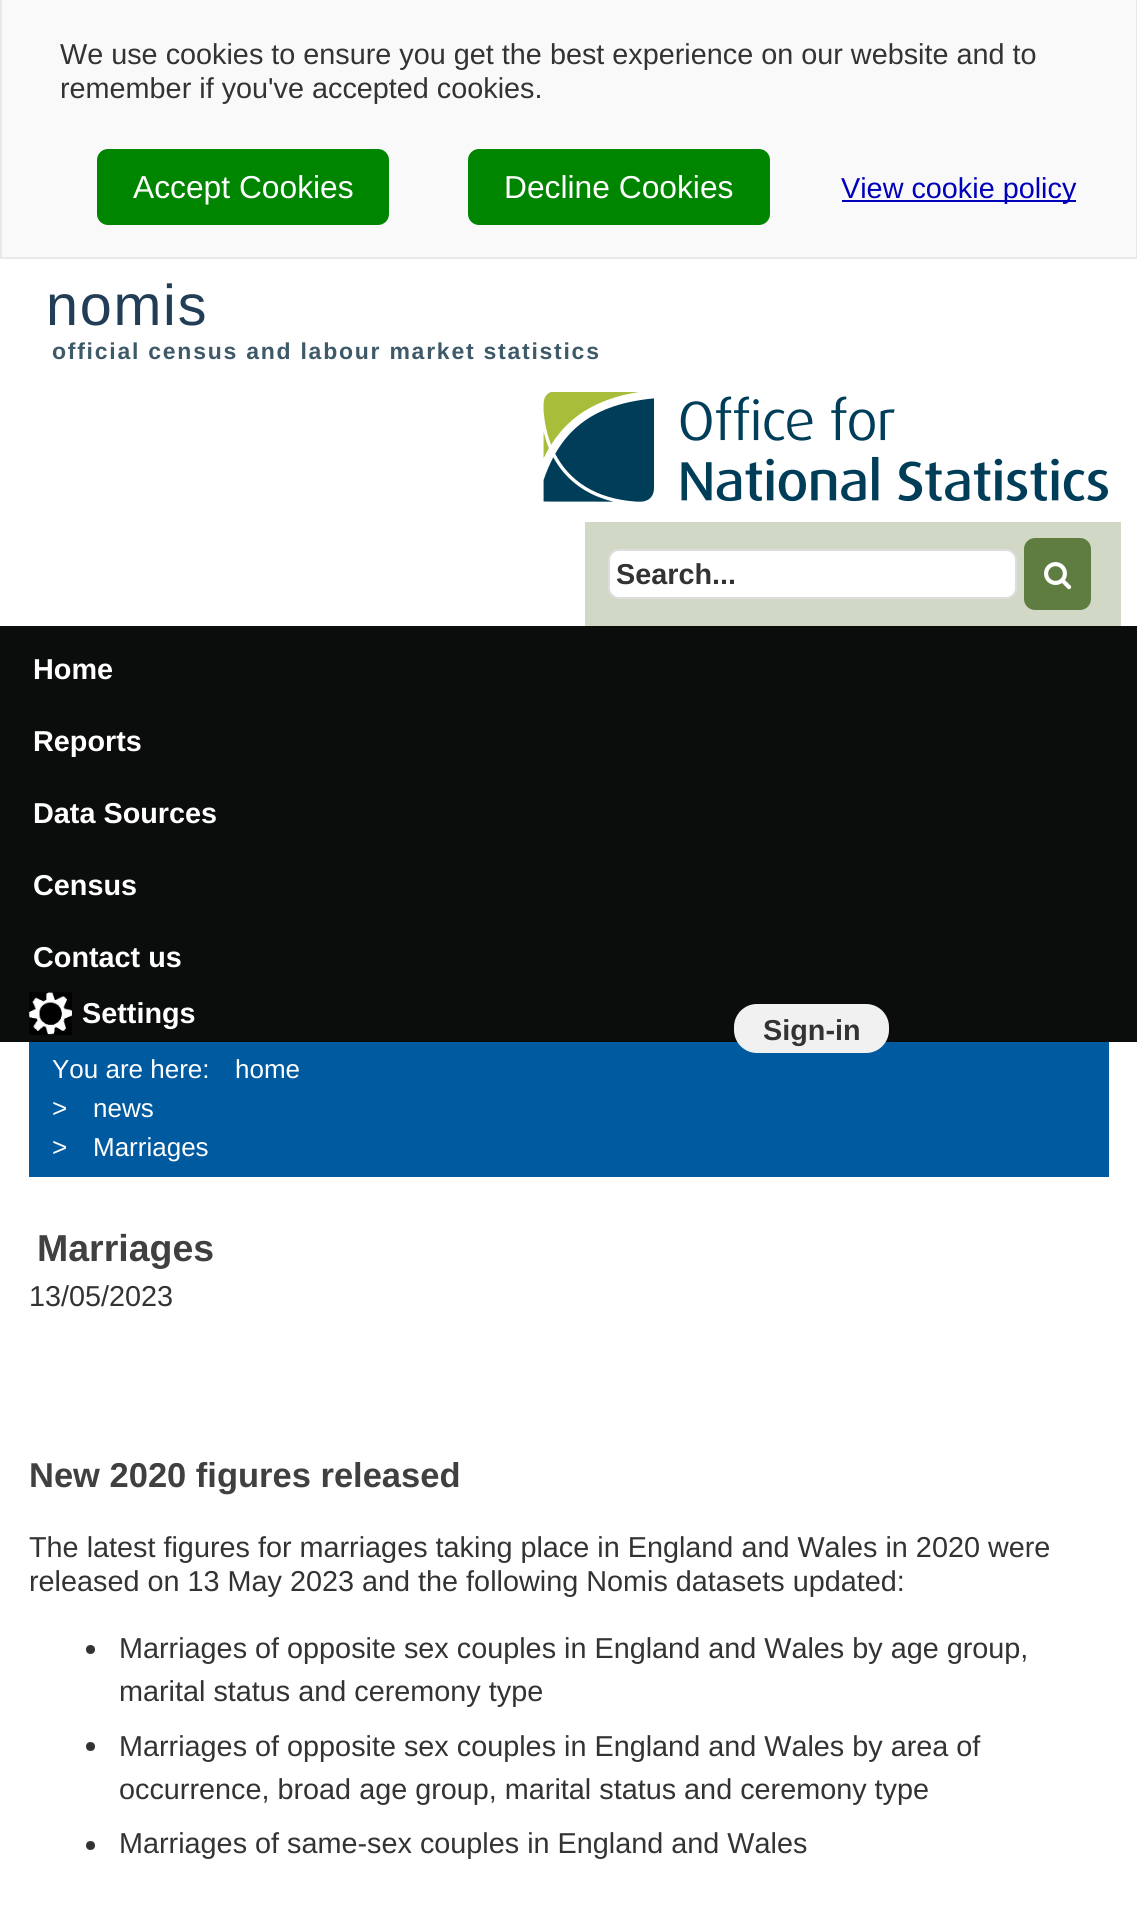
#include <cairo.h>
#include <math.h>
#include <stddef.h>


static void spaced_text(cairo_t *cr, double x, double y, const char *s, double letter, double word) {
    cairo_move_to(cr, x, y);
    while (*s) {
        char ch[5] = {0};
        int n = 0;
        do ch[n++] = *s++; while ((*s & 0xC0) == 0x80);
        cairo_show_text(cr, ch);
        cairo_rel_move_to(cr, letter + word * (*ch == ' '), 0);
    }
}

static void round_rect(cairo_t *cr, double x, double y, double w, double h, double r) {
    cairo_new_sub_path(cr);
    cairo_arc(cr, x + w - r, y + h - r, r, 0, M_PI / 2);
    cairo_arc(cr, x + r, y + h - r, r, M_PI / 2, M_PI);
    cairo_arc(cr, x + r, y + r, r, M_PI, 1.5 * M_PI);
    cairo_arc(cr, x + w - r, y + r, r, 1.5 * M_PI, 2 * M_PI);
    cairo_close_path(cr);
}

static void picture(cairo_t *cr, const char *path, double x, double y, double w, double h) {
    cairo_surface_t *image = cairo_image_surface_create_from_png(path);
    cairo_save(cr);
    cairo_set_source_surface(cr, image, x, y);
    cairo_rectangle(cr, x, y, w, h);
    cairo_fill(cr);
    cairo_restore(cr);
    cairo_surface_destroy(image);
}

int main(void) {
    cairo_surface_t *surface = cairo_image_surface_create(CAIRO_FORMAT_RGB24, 1137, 1908);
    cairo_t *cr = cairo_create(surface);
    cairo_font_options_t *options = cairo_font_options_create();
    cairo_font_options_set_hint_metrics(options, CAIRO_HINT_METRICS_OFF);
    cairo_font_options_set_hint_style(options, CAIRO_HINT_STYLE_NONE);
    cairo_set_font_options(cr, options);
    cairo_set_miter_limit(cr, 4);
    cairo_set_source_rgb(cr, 1, 1, 1);
    cairo_paint(cr);
    cairo_set_source_rgb(cr, 0.973, 0.973, 0.973);
    cairo_rectangle(cr, 2, 0, 1134, 257);
    cairo_fill(cr);
    cairo_set_source_rgb(cr, 0.914, 0.914, 0.914);
    cairo_rectangle(cr, 1136, 0, 1, 259);
    cairo_fill(cr);
    cairo_rectangle(cr, 0, 257, 1137, 2);
    cairo_fill(cr);
    cairo_rectangle(cr, 0, 0, 2, 259);
    cairo_fill(cr);
    cairo_select_font_face(cr, "Liberation Sans", CAIRO_FONT_SLANT_NORMAL, CAIRO_FONT_WEIGHT_NORMAL);
    cairo_set_font_size(cr, 28.8);
    cairo_set_source_rgb(cr, 0.2, 0.2, 0.2);
    cairo_move_to(cr, 60, 64);
    cairo_show_text(cr, "We use cookies to ensure you get the best experience on our website and to");
    cairo_move_to(cr, 60, 98);
    cairo_show_text(cr, "remember if you've accepted cookies.");
    cairo_set_source_rgb(cr, 0, 0.522, 0);
    round_rect(cr, 99.5, 151.5, 287, 71, 8.5);
    cairo_fill_preserve(cr);
    cairo_set_line_width(cr, 5);
    cairo_stroke(cr);
    cairo_set_font_size(cr, 31.75);
    cairo_set_source_rgb(cr, 1, 1, 1);
    cairo_move_to(cr, 133, 198);
    cairo_show_text(cr, "Accept Cookies");
    cairo_set_source_rgb(cr, 0, 0.522, 0);
    round_rect(cr, 470.5, 151.5, 297, 71, 8.5);
    cairo_fill_preserve(cr);
    cairo_stroke(cr);
    cairo_set_source_rgb(cr, 1, 1, 1);
    cairo_move_to(cr, 504, 198);
    cairo_show_text(cr, "Decline Cookies");
    cairo_set_source_rgb(cr, 0, 0, 0.733);
    cairo_rectangle(cr, 842, 200, 234, 2);
    cairo_fill(cr);
    cairo_set_font_size(cr, 28.8);
    cairo_move_to(cr, 841, 198);
    cairo_show_text(cr, "View cookie policy");
    cairo_set_font_size(cr, 57.5);
    cairo_set_source_rgb(cr, 0.133, 0.239, 0.337);
    spaced_text(cr, 46, 325, "nomis", 1.75, 0);
    cairo_select_font_face(cr, "Liberation Sans", CAIRO_FONT_SLANT_NORMAL, CAIRO_FONT_WEIGHT_BOLD);
    cairo_set_font_size(cr, 23);
    cairo_set_source_rgb(cr, 0.243, 0.349, 0.408);
    spaced_text(cr, 52, 359, "official census and labour market statistics", 1.75, 0);
    picture(cr, "img1.png", 543, 392, 565, 110);
    cairo_set_source_rgb(cr, 0.82, 0.851, 0.776);
    cairo_rectangle(cr, 585, 522, 536, 104);
    cairo_fill(cr);
    cairo_set_source_rgb(cr, 1, 1, 1);
    round_rect(cr, 609, 550, 407, 48, 10);
    cairo_fill_preserve(cr);
    cairo_set_source_rgb(cr, 0.867, 0.867, 0.867);
    cairo_set_line_width(cr, 2);
    cairo_stroke(cr);
    cairo_set_font_size(cr, 28.8);
    cairo_set_source_rgb(cr, 0.2, 0.2, 0.2);
    cairo_move_to(cr, 616, 584);
    cairo_show_text(cr, "Search...");
    cairo_set_source_rgb(cr, 0.373, 0.49, 0.255);
    round_rect(cr, 1024, 538, 67, 72, 11);
    cairo_fill(cr);
    picture(cr, "img2.png", 1044, 562, 28, 28);
    cairo_set_source_rgb(cr, 0.043, 0.047, 0.047);
    cairo_rectangle(cr, 0, 626, 1137, 416);
    cairo_fill(cr);
    cairo_set_source_rgb(cr, 1, 1, 1);
    cairo_move_to(cr, 33, 679);
    cairo_show_text(cr, "Home");
    cairo_move_to(cr, 33, 751);
    cairo_show_text(cr, "Reports");
    cairo_move_to(cr, 33, 823);
    cairo_show_text(cr, "Data Sources");
    cairo_move_to(cr, 33, 895);
    cairo_show_text(cr, "Census");
    cairo_move_to(cr, 33, 967);
    cairo_show_text(cr, "Contact us");
    cairo_set_source_rgb(cr, 0, 0.353, 0.627);
    cairo_rectangle(cr, 29, 1042, 1080, 135);
    cairo_fill(cr);
    cairo_set_source_rgb(cr, 0.945, 0.945, 0.945);
    round_rect(cr, 734, 1004, 155, 49, 23);
    cairo_fill(cr);
    cairo_set_source_rgb(cr, 0.2, 0.2, 0.2);
    cairo_move_to(cr, 763, 1040);
    cairo_show_text(cr, "Sign-in");
    picture(cr, "img3.png", 29, 992, 43, 43);
    cairo_set_source_rgb(cr, 1, 1, 1);
    cairo_move_to(cr, 82, 1023);
    cairo_show_text(cr, "Settings");
    cairo_select_font_face(cr, "Liberation Sans", CAIRO_FONT_SLANT_NORMAL, CAIRO_FONT_WEIGHT_NORMAL);
    cairo_set_font_size(cr, 26);
    cairo_move_to(cr, 52, 1078);
    cairo_show_text(cr, "You are here:");
    cairo_move_to(cr, 235, 1078);
    cairo_show_text(cr, "home");
    cairo_move_to(cr, 52, 1117);
    cairo_show_text(cr, ">");
    cairo_move_to(cr, 93, 1117);
    cairo_show_text(cr, "news");
    cairo_move_to(cr, 52, 1156);
    cairo_show_text(cr, ">");
    cairo_move_to(cr, 93, 1156);
    cairo_show_text(cr, "Marriages");
    cairo_select_font_face(cr, "Liberation Sans", CAIRO_FONT_SLANT_NORMAL, CAIRO_FONT_WEIGHT_BOLD);
    cairo_set_font_size(cr, 37.5);
    cairo_set_source_rgb(cr, 0.251, 0.251, 0.251);
    cairo_move_to(cr, 37, 1261);
    cairo_show_text(cr, "Marriages");
    cairo_select_font_face(cr, "Liberation Sans", CAIRO_FONT_SLANT_NORMAL, CAIRO_FONT_WEIGHT_NORMAL);
    cairo_set_font_size(cr, 28.8);
    cairo_set_source_rgb(cr, 0.2, 0.2, 0.2);
    cairo_move_to(cr, 29, 1306);
    cairo_show_text(cr, "13/05/2023");
    cairo_select_font_face(cr, "Liberation Sans", CAIRO_FONT_SLANT_NORMAL, CAIRO_FONT_WEIGHT_BOLD);
    cairo_set_font_size(cr, 34.5);
    cairo_set_source_rgb(cr, 0.251, 0.251, 0.251);
    cairo_move_to(cr, 29, 1487);
    cairo_show_text(cr, "New 2020 figures released");
    cairo_select_font_face(cr, "Liberation Sans", CAIRO_FONT_SLANT_NORMAL, CAIRO_FONT_WEIGHT_NORMAL);
    cairo_set_font_size(cr, 28.8);
    cairo_set_source_rgb(cr, 0.2, 0.2, 0.2);
    cairo_move_to(cr, 29, 1557);
    cairo_show_text(cr, "The latest figures for marriages taking place in England and Wales in 2020 were");
    cairo_move_to(cr, 29, 1591);
    cairo_show_text(cr, "released on 13 May 2023 and the following Nomis datasets updated:");
    cairo_new_path(cr);
    cairo_arc(cr, 90.5, 1649.5, 4.5, 0, 2 * M_PI);
    cairo_fill(cr);
    cairo_move_to(cr, 119, 1658);
    cairo_show_text(cr, "Marriages of opposite sex couples in England and Wales by age group,");
    cairo_move_to(cr, 119, 1701);
    cairo_show_text(cr, "marital status and ceremony type");
    cairo_new_path(cr);
    cairo_arc(cr, 90.5, 1746.5, 4.5, 0, 2 * M_PI);
    cairo_fill(cr);
    cairo_move_to(cr, 119, 1756);
    cairo_show_text(cr, "Marriages of opposite sex couples in England and Wales by area of");
    cairo_move_to(cr, 119, 1799);
    cairo_show_text(cr, "occurrence, broad age group, marital status and ceremony type");
    cairo_new_path(cr);
    cairo_arc(cr, 90.5, 1845.5, 4.5, 0, 2 * M_PI);
    cairo_fill(cr);
    cairo_move_to(cr, 119, 1853);
    cairo_show_text(cr, "Marriages of same-sex couples in England and Wales");
    cairo_surface_write_to_png(surface, "page.png");
    cairo_font_options_destroy(options);
    cairo_destroy(cr);
    cairo_surface_destroy(surface);
    return 0;
}
